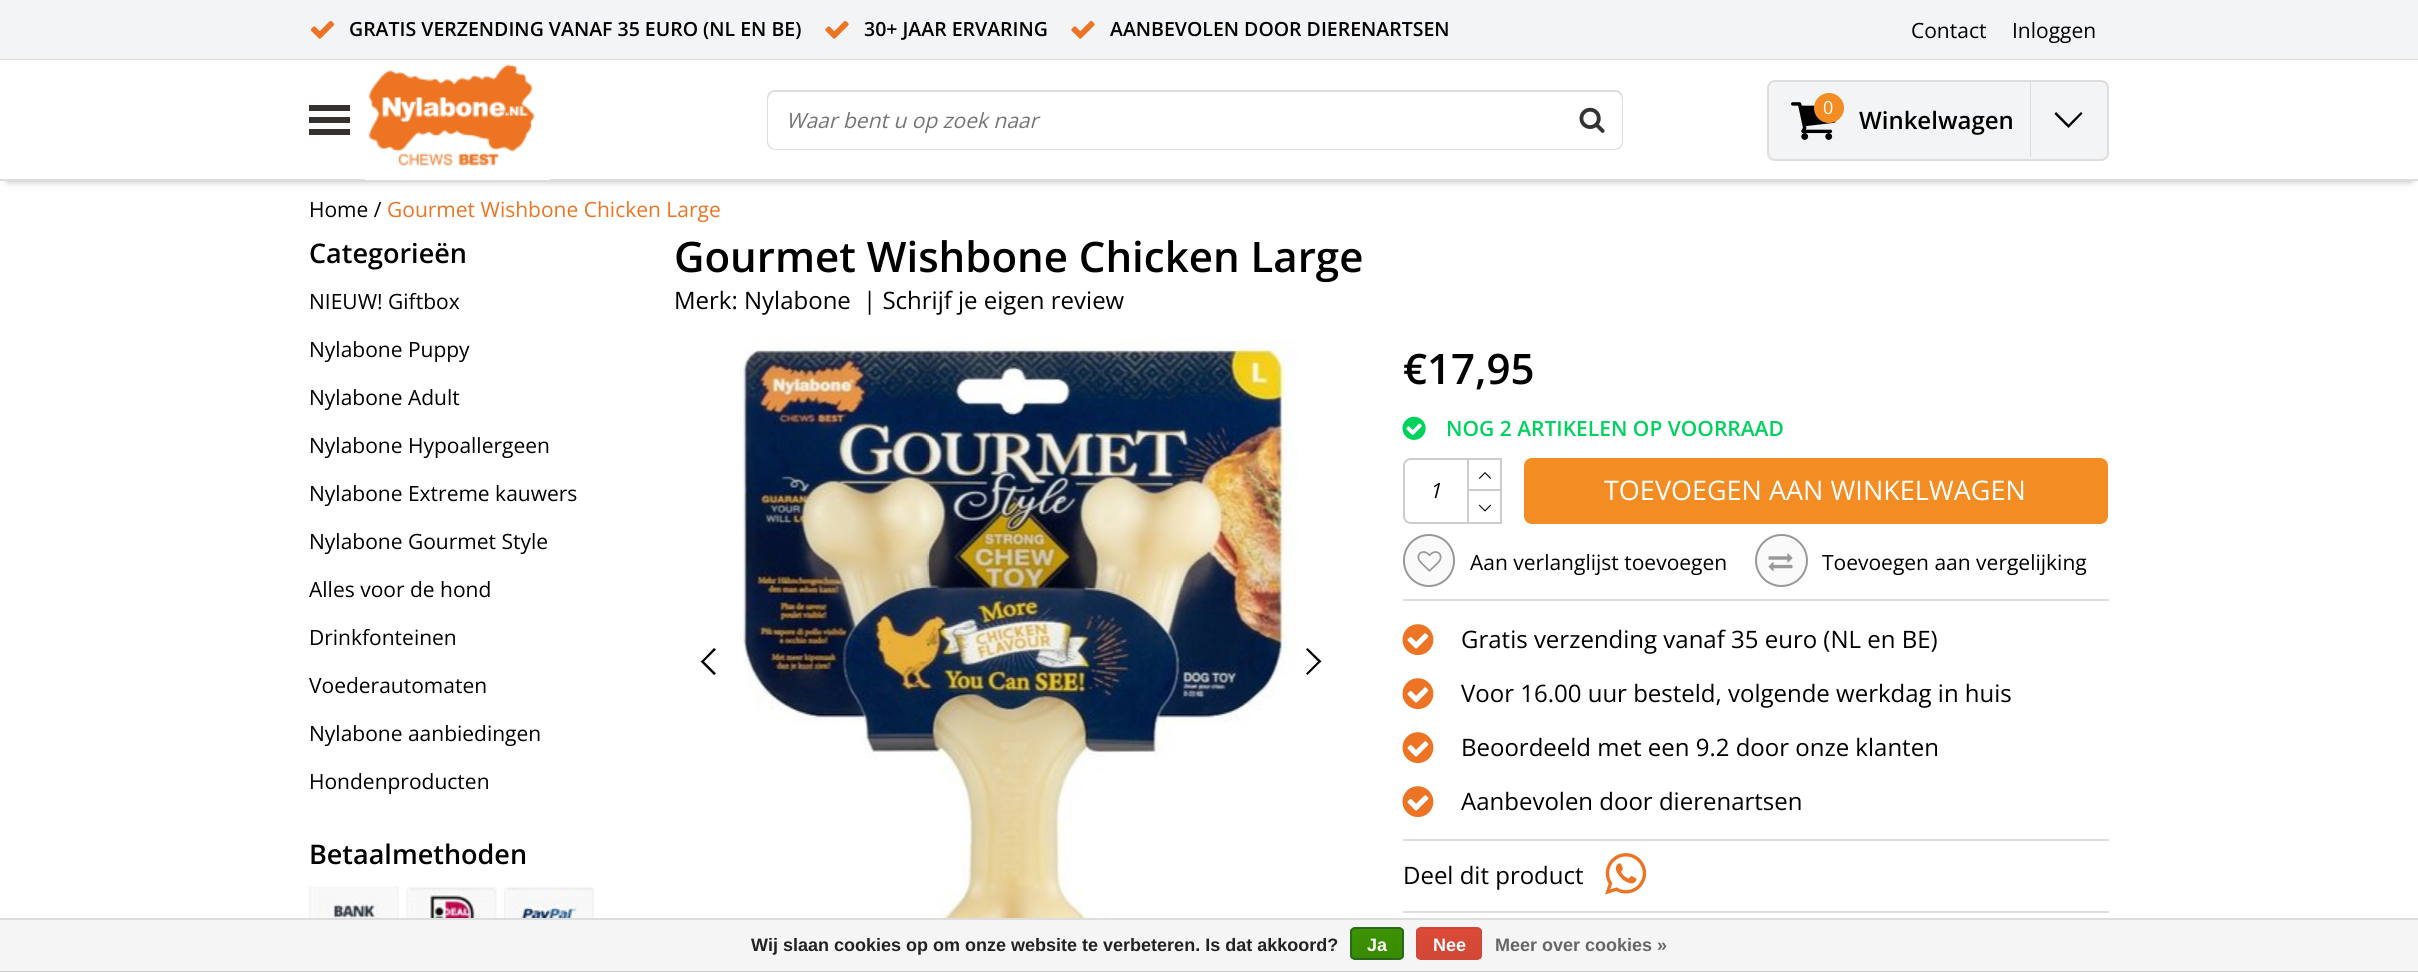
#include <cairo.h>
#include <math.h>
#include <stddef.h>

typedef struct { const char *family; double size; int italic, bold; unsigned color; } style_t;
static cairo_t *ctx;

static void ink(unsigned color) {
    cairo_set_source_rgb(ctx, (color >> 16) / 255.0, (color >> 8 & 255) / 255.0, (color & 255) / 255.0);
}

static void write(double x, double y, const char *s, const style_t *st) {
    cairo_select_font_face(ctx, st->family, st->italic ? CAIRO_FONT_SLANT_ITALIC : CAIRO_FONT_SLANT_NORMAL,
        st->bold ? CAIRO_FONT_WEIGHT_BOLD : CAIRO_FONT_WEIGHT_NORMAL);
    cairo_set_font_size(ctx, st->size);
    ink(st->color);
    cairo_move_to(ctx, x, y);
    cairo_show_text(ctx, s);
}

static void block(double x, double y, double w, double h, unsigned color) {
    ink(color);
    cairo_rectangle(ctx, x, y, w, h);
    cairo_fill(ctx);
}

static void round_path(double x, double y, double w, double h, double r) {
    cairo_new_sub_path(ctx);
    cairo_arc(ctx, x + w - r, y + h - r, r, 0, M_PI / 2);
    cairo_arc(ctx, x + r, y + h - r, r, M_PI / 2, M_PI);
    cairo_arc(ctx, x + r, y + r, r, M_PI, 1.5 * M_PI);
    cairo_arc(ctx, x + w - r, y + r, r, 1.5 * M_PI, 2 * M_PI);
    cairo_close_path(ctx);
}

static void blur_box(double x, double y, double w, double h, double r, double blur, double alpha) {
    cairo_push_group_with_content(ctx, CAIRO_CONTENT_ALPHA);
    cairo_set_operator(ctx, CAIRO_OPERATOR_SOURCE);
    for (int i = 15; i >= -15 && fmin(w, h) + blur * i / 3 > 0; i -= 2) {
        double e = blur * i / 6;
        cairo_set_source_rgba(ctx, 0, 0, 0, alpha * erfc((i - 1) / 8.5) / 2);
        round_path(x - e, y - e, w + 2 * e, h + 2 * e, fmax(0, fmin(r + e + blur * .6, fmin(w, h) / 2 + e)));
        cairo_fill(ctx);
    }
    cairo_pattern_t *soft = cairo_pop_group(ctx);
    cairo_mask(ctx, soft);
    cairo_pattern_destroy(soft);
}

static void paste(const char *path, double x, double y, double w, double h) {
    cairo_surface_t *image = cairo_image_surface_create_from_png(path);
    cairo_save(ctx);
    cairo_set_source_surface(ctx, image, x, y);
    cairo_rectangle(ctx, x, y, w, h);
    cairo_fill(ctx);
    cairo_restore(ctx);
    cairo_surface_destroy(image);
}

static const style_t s1 = {"Open Sans SemiBold", 19.5, 0, 0, 0x000000};
static const style_t s2 = {"Open Sans", 21, 0, 0, 0x000000};
static const style_t s3 = {"Open Sans", 21, 1, 0, 0x757575};
static const style_t s4 = {"Open Sans", 18, 0, 0, 0xffffff};
static const style_t s5 = {"Open Sans SemiBold", 24, 0, 0, 0x000000};
static const style_t s6 = {"Open Sans", 21, 0, 0, 0xec7424};
static const style_t s7 = {"Open Sans SemiBold", 27, 0, 0, 0x000000};
static const style_t s8 = {"Open Sans SemiBold", 42, 0, 0, 0x000000};
static const style_t s9 = {"Open Sans", 24, 0, 0, 0x000000};
static const style_t s10 = {"Open Sans SemiBold", 21, 0, 0, 0x00d25e};
static const style_t s11 = {"Open Sans", 21, 1, 0, 0x000000};
static const style_t s12 = {"Open Sans", 27, 0, 0, 0xffffff};
static const style_t s13 = {"Liberation Sans", 18, 0, 1, 0x222222};
static const style_t s14 = {"Liberation Sans", 18, 0, 1, 0xffffff};
static const style_t s15 = {"Liberation Sans", 18, 0, 1, 0x666666};

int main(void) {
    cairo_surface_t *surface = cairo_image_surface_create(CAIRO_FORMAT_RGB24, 2418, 972);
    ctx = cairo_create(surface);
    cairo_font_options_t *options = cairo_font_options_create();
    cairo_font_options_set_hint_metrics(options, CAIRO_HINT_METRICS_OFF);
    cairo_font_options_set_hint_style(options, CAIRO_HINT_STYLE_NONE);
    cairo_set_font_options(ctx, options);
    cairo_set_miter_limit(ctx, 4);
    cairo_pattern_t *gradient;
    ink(0xffffff);
    cairo_paint(ctx);
    block(0, 0, 2418, 59, 0xf3f4f6);
    block(0, 59, 2418, 1, 0xdddddd);
    paste("pic1.png", 310, 20, 25, 19);
    write(349, 36, "GRATIS VERZENDING VANAF 35 EURO (NL EN BE)", &s1);
    paste("pic2.png", 825, 20, 24, 19);
    write(864, 36, "30+ JAAR ERVARING", &s1);
    paste("pic2.png", 1071, 20, 24, 19);
    write(1110, 36, "AANBEVOLEN DOOR DIERENARTSEN", &s1);
    write(1911, 38, "Contact", &s2);
    write(2012, 38, "Inloggen", &s2);
    ink(0x000000);
    blur_box(8, 75, 2403, 105, 0, 4, 0.4);
    block(0, 67, 2418, 112, 0xffffff);
    block(0, 179, 2418, 2, 0xdddddd);
    block(309, 105, 41, 6, 0x34312f);
    block(309, 117, 41, 6, 0x34312f);
    block(309, 129, 41, 6, 0x34312f);
    paste("pic3.png", 364, 64, 187, 116);
    round_path(768, 91, 854, 58, 7);
    ink(0xdddddd);
    cairo_stroke(ctx);
    ink(0xffffff);
    round_path(768, 92, 854, 57, 8);
    cairo_fill(ctx);
    write(786, 128, "Waar bent u op zoek naar", &s3);
    block(1618, 93, 1, 1, 0xffffff);
    paste("pic4.png", 1579, 107, 26, 26);
    ink(0xf3f4f6);
    round_path(1768, 81, 340, 79, 7);
    cairo_fill_preserve(ctx);
    ink(0xdddddd);
    cairo_stroke(ctx);
    paste("pic5.png", 1791, 102, 45, 38);
    ink(0xf48c24);
    cairo_arc(ctx, 1829, 108, 15, 0, 2 * M_PI);
    cairo_fill(ctx);
    write(1823, 114, "0", &s4);
    write(1859, 129, "Winkelwagen", &s5);
    ink(0xdddddd);
    cairo_new_path(ctx);
    cairo_move_to(ctx, 2030, 158);
    cairo_line_to(ctx, 2030, 81);
    cairo_line_to(ctx, 2031, 81);
    cairo_line_to(ctx, 2031, 156);
    cairo_close_path(ctx);
    cairo_fill(ctx);
    ink(0x000000);
    cairo_new_path(ctx);
    cairo_move_to(ctx, 2066.5, 126);
    cairo_line_to(ctx, 2068.5, 128);
    cairo_line_to(ctx, 2082.5, 113.5);
    cairo_line_to(ctx, 2081, 112);
    cairo_line_to(ctx, 2068.5, 124.5);
    cairo_line_to(ctx, 2056, 112);
    cairo_line_to(ctx, 2054.5, 114);
    cairo_close_path(ctx);
    cairo_fill(ctx);
    write(309, 217, "Home /", &s2);
    write(387, 217, "Gourmet Wishbone Chicken Large", &s6);
    write(309, 263, "Categorieën", &s7);
    write(309, 309, "NIEUW! Giftbox", &s2);
    write(309, 357, "Nylabone Puppy", &s2);
    write(309, 405, "Nylabone Adult", &s2);
    write(309, 453, "Nylabone Hypoallergeen", &s2);
    write(309, 501, "Nylabone Extreme kauwers", &s2);
    write(309, 549, "Nylabone Gourmet Style", &s2);
    write(309, 597, "Alles voor de hond", &s2);
    write(309, 645, "Drinkfonteinen", &s2);
    write(309, 693, "Voederautomaten", &s2);
    write(309, 741, "Nylabone aanbiedingen", &s2);
    write(309, 789, "Hondenproducten", &s2);
    write(309, 864, "Betaalmethoden", &s7);
    paste("pic6.png", 309, 886, 90, 32);
    paste("pic7.png", 406, 886, 91, 32);
    paste("pic8.png", 504, 886, 90, 32);
    write(674, 272, "Gourmet Wishbone Chicken Large", &s8);
    write(674, 309, "Merk: Nylabone", &s9);
    write(863, 309, "| Schrijf je eigen review", &s9);
    paste("pic9.png", 743, 339, 555, 579);
    cairo_new_path(ctx);
    cairo_move_to(ctx, 702.5, 660);
    cairo_line_to(ctx, 700.5, 661.5);
    cairo_line_to(ctx, 714, 675);
    cairo_line_to(ctx, 716, 673.5);
    cairo_line_to(ctx, 704, 661.5);
    cairo_line_to(ctx, 716, 649.5);
    cairo_line_to(ctx, 714, 648);
    cairo_close_path(ctx);
    cairo_fill(ctx);
    cairo_new_path(ctx);
    cairo_move_to(ctx, 1319.5, 663);
    cairo_line_to(ctx, 1321.5, 661.5);
    cairo_line_to(ctx, 1307.5, 648);
    cairo_line_to(ctx, 1306, 649.5);
    cairo_line_to(ctx, 1318, 661.5);
    cairo_line_to(ctx, 1306, 673.5);
    cairo_line_to(ctx, 1307.5, 675);
    cairo_close_path(ctx);
    cairo_fill(ctx);
    write(1403, 384, "€17,95", &s8);
    paste("pic10.png", 1402, 416, 24, 24);
    write(1446, 436, "NOG 2 ARTIKELEN OP VOORRAAD", &s10);
    cairo_new_path(ctx);
    cairo_move_to(ctx, 1411, 459);
    cairo_line_to(ctx, 1468, 459);
    cairo_line_to(ctx, 1468, 523);
    cairo_line_to(ctx, 1411, 523);
    cairo_curve_to(ctx, 1407, 523, 1404, 520, 1404, 516);
    cairo_line_to(ctx, 1404, 466);
    cairo_curve_to(ctx, 1404, 462, 1407, 459, 1411, 459);
    cairo_close_path(ctx);
    ink(0xcccccc);
    cairo_stroke(ctx);
    write(1429, 498, "1", &s11);
    block(1469, 458, 33, 2, 0xcccccc);
    block(1500, 458, 2, 66, 0xcccccc);
    block(1469, 489, 33, 2, 0xcccccc);
    paste("pic11.png", 1478, 472, 14, 7);
    block(1469, 522, 33, 2, 0xcccccc);
    paste("pic12.png", 1478, 504, 14, 8);
    ink(0xf48c24);
    round_path(1524, 458, 584, 66, 8);
    cairo_fill(ctx);
    write(1604, 500, "TOEVOEGEN AAN WINKELWAGEN", &s12);
    block(1403, 599, 706, 2, 0xdddddd);
    ink(0xfafafa);
    round_path(1404, 535, 50, 51, 25);
    cairo_fill_preserve(ctx);
    ink(0x999999);
    cairo_stroke(ctx);
    paste("pic13.png", 1417, 551, 25, 21);
    write(1470, 570, "Aan verlanglijst toevoegen", &s2);
    ink(0xfafafa);
    cairo_new_path(ctx);
    cairo_arc(ctx, 1781.5, 560.5, 25.5, 0, 2 * M_PI);
    cairo_fill_preserve(ctx);
    ink(0x999999);
    cairo_stroke(ctx);
    paste("pic14.png", 1768, 553, 25, 19);
    write(1822, 570, "Toevoegen aan vergelijking", &s2);
    block(1403, 839, 706, 2, 0xdddddd);
    paste("pic15.png", 1402, 624, 32, 32);
    write(1461, 648, "Gratis verzending vanaf 35 euro (NL en BE)", &s9);
    paste("pic15.png", 1402, 678, 32, 32);
    write(1461, 702, "Voor 16.00 uur besteld, volgende werkdag in huis", &s9);
    paste("pic15.png", 1402, 732, 32, 32);
    write(1461, 756, "Beoordeeld met een 9.2 door onze klanten", &s9);
    paste("pic15.png", 1402, 786, 32, 32);
    write(1461, 810, "Aanbevolen door dierenartsen", &s9);
    block(1403, 911, 706, 2, 0xdddddd);
    write(1403, 884, "Deel dit product", &s9);
    paste("pic16.png", 1605, 853, 42, 42);
    block(0, 920, 2418, 51, 0xf5f5f5);
    block(0, 918, 2418, 2, 0xdddddd);
    block(0, 971, 2418, 1, 0xcccccc);
    write(751, 951, "Wij slaan cookies op om onze website te verbeteren. Is dat akkoord?", &s13);
    cairo_save(ctx);
    round_path(1350, 927, 54, 33, 5);
    cairo_clip(ctx);
    gradient = cairo_pattern_create_linear(1377, 929, 1377, 959);
    cairo_pattern_add_color_stop_rgba(gradient, 0, 0.235, 0.576, 0, 1);
    cairo_pattern_add_color_stop_rgba(gradient, 1, 0.224, 0.541, 0, 1);
    cairo_set_source(ctx, gradient);
    cairo_pattern_destroy(gradient);
    cairo_rectangle(ctx, 1350, 929, 54, 30);
    cairo_fill(ctx);
    cairo_restore(ctx);
    round_path(1351, 928, 52, 31, 4);
    ink(0x29691d);
    cairo_stroke(ctx);
    write(1367, 951, "Ja", &s14);
    cairo_save(ctx);
    round_path(1416, 927, 66, 33, 5);
    cairo_clip(ctx);
    gradient = cairo_pattern_create_linear(1449, 929, 1449, 959);
    cairo_pattern_add_color_stop_rgba(gradient, 0, 0.863, 0.29, 0.22, 1);
    cairo_pattern_add_color_stop_rgba(gradient, 1, 0.82, 0.282, 0.212, 1);
    cairo_set_source(ctx, gradient);
    cairo_pattern_destroy(gradient);
    cairo_rectangle(ctx, 1416, 929, 66, 30);
    cairo_fill(ctx);
    cairo_restore(ctx);
    round_path(1417, 928, 64, 31, 4);
    ink(0xd14836);
    cairo_stroke(ctx);
    write(1433, 951, "Nee", &s14);
    write(1495, 951, "Meer over cookies »", &s15);
    cairo_surface_write_to_png(surface, "screenshot.png");
    cairo_font_options_destroy(options);
    cairo_destroy(ctx);
    cairo_surface_destroy(surface);
    return 0;
}
